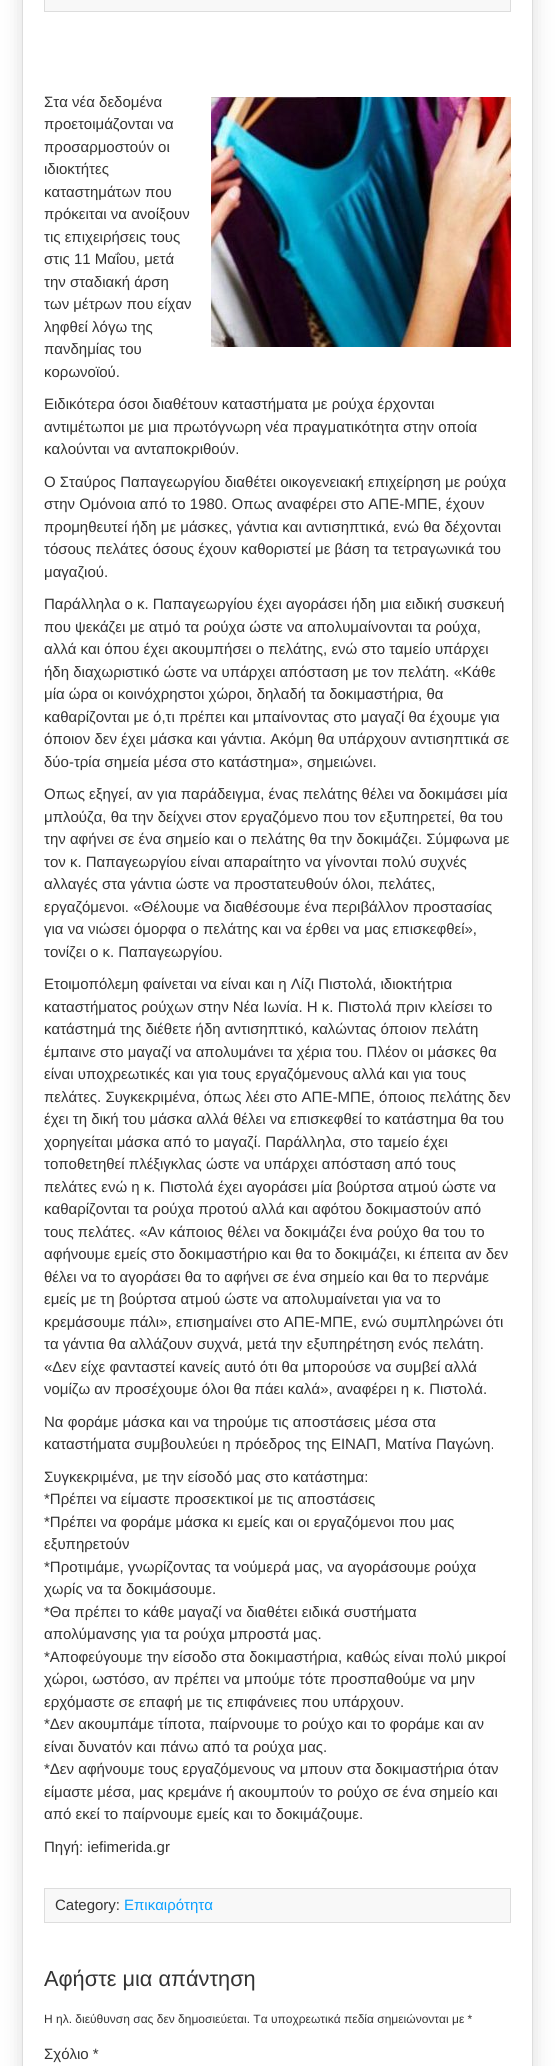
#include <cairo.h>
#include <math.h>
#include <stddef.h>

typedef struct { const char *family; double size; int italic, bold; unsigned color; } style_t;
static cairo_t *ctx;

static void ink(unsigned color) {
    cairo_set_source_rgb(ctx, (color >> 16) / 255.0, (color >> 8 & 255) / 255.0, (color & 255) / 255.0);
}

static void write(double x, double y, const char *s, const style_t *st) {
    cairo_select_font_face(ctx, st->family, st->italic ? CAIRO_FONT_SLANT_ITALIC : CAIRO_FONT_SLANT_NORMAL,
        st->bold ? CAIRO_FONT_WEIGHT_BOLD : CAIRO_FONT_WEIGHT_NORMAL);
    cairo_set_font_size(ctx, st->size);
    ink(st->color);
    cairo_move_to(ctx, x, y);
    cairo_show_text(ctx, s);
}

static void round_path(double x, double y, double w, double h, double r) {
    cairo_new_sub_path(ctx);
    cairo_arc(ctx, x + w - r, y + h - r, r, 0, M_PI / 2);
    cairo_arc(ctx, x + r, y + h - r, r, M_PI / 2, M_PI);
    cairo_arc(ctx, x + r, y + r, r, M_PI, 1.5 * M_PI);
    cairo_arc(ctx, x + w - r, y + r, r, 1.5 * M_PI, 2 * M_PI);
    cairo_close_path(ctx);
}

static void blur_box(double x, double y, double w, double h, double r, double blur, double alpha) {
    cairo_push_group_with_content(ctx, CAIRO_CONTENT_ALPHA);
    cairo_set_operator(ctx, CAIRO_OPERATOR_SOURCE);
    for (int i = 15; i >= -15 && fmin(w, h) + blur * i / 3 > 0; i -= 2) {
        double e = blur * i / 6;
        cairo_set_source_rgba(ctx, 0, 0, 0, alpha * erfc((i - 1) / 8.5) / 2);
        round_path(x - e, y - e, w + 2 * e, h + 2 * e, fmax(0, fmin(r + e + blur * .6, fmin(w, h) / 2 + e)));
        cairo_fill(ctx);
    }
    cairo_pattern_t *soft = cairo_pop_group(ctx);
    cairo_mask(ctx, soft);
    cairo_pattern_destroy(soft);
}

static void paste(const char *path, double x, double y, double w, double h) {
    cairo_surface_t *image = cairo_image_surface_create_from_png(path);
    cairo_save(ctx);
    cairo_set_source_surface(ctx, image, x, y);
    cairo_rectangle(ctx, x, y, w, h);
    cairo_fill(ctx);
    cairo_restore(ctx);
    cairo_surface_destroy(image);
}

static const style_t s1 = {"Liberation Sans", 15, 0, 0, 0x333333};
static const style_t s2 = {"Liberation Sans", 15, 0, 0, 0x08a0ff};
static const style_t s3 = {"Liberation Sans", 21.75, 0, 0, 0x333333};
static const style_t s4 = {"Liberation Sans", 12, 0, 0, 0x333333};

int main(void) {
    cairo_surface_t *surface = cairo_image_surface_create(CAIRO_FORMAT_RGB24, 555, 2066);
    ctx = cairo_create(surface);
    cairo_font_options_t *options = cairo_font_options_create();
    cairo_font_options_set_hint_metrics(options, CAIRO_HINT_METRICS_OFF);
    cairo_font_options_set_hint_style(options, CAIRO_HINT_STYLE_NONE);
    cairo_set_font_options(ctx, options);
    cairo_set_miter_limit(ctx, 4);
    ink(0xffffff);
    cairo_paint(ctx);
    cairo_save(ctx);
    cairo_set_fill_rule(ctx, CAIRO_FILL_RULE_EVEN_ODD);
    cairo_new_path(ctx);
    cairo_move_to(ctx, 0, 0);
    cairo_line_to(ctx, 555, 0);
    cairo_line_to(ctx, 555, 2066);
    cairo_line_to(ctx, 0, 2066);
    cairo_close_path(ctx);
    cairo_move_to(ctx, 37, -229);
    cairo_line_to(ctx, 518, -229);
    cairo_curve_to(ctx, 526.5, -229, 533, -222.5, 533, -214);
    cairo_line_to(ctx, 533, 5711);
    cairo_curve_to(ctx, 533, 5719.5, 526.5, 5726, 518, 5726);
    cairo_line_to(ctx, 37, 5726);
    cairo_curve_to(ctx, 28.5, 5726, 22, 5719.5, 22, 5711);
    cairo_line_to(ctx, 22, -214);
    cairo_curve_to(ctx, 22, -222.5, 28.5, -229, 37, -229);
    cairo_close_path(ctx);
    cairo_clip(ctx);
    ink(0xdddddd);
    blur_box(22, -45, 511, 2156, 15, 10, 1);
    cairo_restore(ctx);
    cairo_rectangle(ctx, 22.5, -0.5, 510, 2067);
    ink(0xdddddd);
    cairo_set_line_width(ctx, 1);
    cairo_stroke(ctx);
    ink(0xf8f8f8);
    cairo_rectangle(ctx, 44.5, -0.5, 466, 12);
    cairo_fill_preserve(ctx);
    ink(0xdddddd);
    cairo_stroke(ctx);
    write(44, 107, "Στα νέα δεδομένα", &s1);
    paste("pic1.png", 211, 97, 300, 250);
    write(44, 129, "προετοιμάζονται να", &s1);
    write(44, 152, "προσαρμοστούν οι", &s1);
    write(44, 174, "ιδιοκτήτες", &s1);
    write(44, 197, "καταστημάτων που", &s1);
    write(44, 219, "πρόκειται να ανοίξουν", &s1);
    write(44, 242, "τις επιχειρήσεις τους", &s1);
    write(44, 264, "στις 11 Μαΐου, μετά", &s1);
    write(44, 287, "την σταδιακή άρση", &s1);
    write(44, 309, "των μέτρων που είχαν", &s1);
    write(44, 332, "ληφθεί λόγω της", &s1);
    write(44, 354, "πανδημίας του", &s1);
    write(44, 377, "κορωνοϊού.", &s1);
    write(44, 409, "Ειδικότερα όσοι διαθέτουν καταστήματα με ρούχα έρχονται", &s1);
    write(44, 432, "αντιμέτωποι με μια πρωτόγνωρη νέα πραγματικότητα στην οποία", &s1);
    write(44, 454, "καλούνται να ανταποκριθούν.", &s1);
    write(44, 487, "Ο Σταύρος Παπαγεωργίου διαθέτει οικογενειακή επιχείρηση με ρούχα", &s1);
    write(44, 509, "στην Ομόνοια από το 1980. Οπως αναφέρει στο ΑΠΕ-ΜΠΕ, έχουν", &s1);
    write(44, 532, "προμηθευτεί ήδη με μάσκες, γάντια και αντισηπτικά, ενώ θα δέχονται", &s1);
    write(44, 554, "τόσους πελάτες όσους έχουν καθοριστεί με βάση τα τετραγωνικά του", &s1);
    write(44, 577, "μαγαζιού.", &s1);
    write(44, 609, "Παράλληλα ο κ. Παπαγεωργίου έχει αγοράσει ήδη μια ειδική συσκευή", &s1);
    write(44, 632, "που ψεκάζει με ατμό τα ρούχα ώστε να απολυμαίνονται τα ρούχα,", &s1);
    write(44, 654, "αλλά και όπου έχει ακουμπήσει ο πελάτης, ενώ στο ταμείο υπάρχει", &s1);
    write(44, 677, "ήδη διαχωριστικό ώστε να υπάρχει απόσταση με τον πελάτη. «Κάθε", &s1);
    write(44, 699, "μία ώρα οι κοινόχρηστοι χώροι, δηλαδή τα δοκιμαστήρια, θα", &s1);
    write(44, 722, "καθαρίζονται με ό,τι πρέπει και μπαίνοντας στο μαγαζί θα έχουμε για", &s1);
    write(44, 744, "όποιον δεν έχει μάσκα και γάντια. Ακόμη θα υπάρχουν αντισηπτικά σε", &s1);
    write(44, 767, "δύο-τρία σημεία μέσα στο κατάστημα», σημειώνει.", &s1);
    write(44, 799, "Οπως εξηγεί, αν για παράδειγμα, ένας πελάτης θέλει να δοκιμάσει μία", &s1);
    write(44, 822, "μπλούζα, θα την δείχνει στον εργαζόμενο που τον εξυπηρετεί, θα του", &s1);
    write(44, 844, "την αφήνει σε ένα σημείο και ο πελάτης θα την δοκιμάζει. Σύμφωνα με", &s1);
    write(44, 867, "τον κ. Παπαγεωργίου είναι απαραίτητο να γίνονται πολύ συχνές", &s1);
    write(44, 889, "αλλαγές στα γάντια ώστε να προστατευθούν όλοι, πελάτες,", &s1);
    write(44, 912, "εργαζόμενοι. «Θέλουμε να διαθέσουμε ένα περιβάλλον προστασίας", &s1);
    write(44, 934, "για να νιώσει όμορφα ο πελάτης και να έρθει να μας επισκεφθεί»,", &s1);
    write(44, 957, "τονίζει ο κ. Παπαγεωργίου.", &s1);
    write(44, 989, "Ετοιμοπόλεμη φαίνεται να είναι και η Λίζι Πιστολά, ιδιοκτήτρια", &s1);
    write(44, 1012, "καταστήματος ρούχων στην Νέα Ιωνία. Η κ. Πιστολά πριν κλείσει το", &s1);
    write(44, 1034, "κατάστημά της διέθετε ήδη αντισηπτικό, καλώντας όποιον πελάτη", &s1);
    write(44, 1057, "έμπαινε στο μαγαζί να απολυμάνει τα χέρια του. Πλέον οι μάσκες θα", &s1);
    write(44, 1079, "είναι υποχρεωτικές και για τους εργαζόμενους αλλά και για τους", &s1);
    write(44, 1102, "πελάτες. Συγκεκριμένα, όπως λέει στο ΑΠΕ-ΜΠΕ, όποιος πελάτης δεν", &s1);
    write(44, 1124, "έχει τη δική του μάσκα αλλά θέλει να επισκεφθεί το κατάστημα θα του", &s1);
    write(44, 1147, "χορηγείται μάσκα από το μαγαζί. Παράλληλα, στο ταμείο έχει", &s1);
    write(44, 1169, "τοποθετηθεί πλέξιγκλας ώστε να υπάρχει απόσταση από τους", &s1);
    write(44, 1192, "πελάτες ενώ η κ. Πιστολά έχει αγοράσει μία βούρτσα ατμού ώστε να", &s1);
    write(44, 1214, "καθαρίζονται τα ρούχα προτού αλλά και αφότου δοκιμαστούν από", &s1);
    write(44, 1237, "τους πελάτες. «Αν κάποιος θέλει να δοκιμάζει ένα ρούχο θα του το", &s1);
    write(44, 1259, "αφήνουμε εμείς στο δοκιμαστήριο και θα το δοκιμάζει, κι έπειτα αν δεν", &s1);
    write(44, 1282, "θέλει να το αγοράσει θα το αφήνει σε ένα σημείο και θα το περνάμε", &s1);
    write(44, 1304, "εμείς με τη βούρτσα ατμού ώστε να απολυμαίνεται για να το", &s1);
    write(44, 1327, "κρεμάσουμε πάλι», επισημαίνει στο ΑΠΕ-ΜΠΕ, ενώ συμπληρώνει ότι", &s1);
    write(44, 1349, "τα γάντια θα αλλάζουν συχνά, μετά την εξυπηρέτηση ενός πελάτη.", &s1);
    write(44, 1372, "«Δεν είχε φανταστεί κανείς αυτό ότι θα μπορούσε να συμβεί αλλά", &s1);
    write(44, 1394, "νομίζω αν προσέχουμε όλοι θα πάει καλά», αναφέρει η κ. Πιστολά.", &s1);
    write(44, 1427, "Να φοράμε μάσκα και να τηρούμε τις αποστάσεις μέσα στα", &s1);
    write(44, 1449, "καταστήματα συμβουλεύει η πρόεδρος της ΕΙΝΑΠ, Ματίνα Παγώνη.", &s1);
    write(44, 1482, "Συγκεκριμένα, με την είσοδό μας στο κατάστημα:", &s1);
    write(44, 1504, "*Πρέπει να είμαστε προσεκτικοί με τις αποστάσεις", &s1);
    write(44, 1527, "*Πρέπει να φοράμε μάσκα κι εμείς και οι εργαζόμενοι που μας", &s1);
    write(44, 1549, "εξυπηρετούν", &s1);
    write(44, 1572, "*Προτιμάμε, γνωρίζοντας τα νούμερά μας, να αγοράσουμε ρούχα", &s1);
    write(44, 1594, "χωρίς να τα δοκιμάσουμε.", &s1);
    write(44, 1617, "*Θα πρέπει το κάθε μαγαζί να διαθέτει ειδικά συστήματα", &s1);
    write(44, 1639, "απολύμανσης για τα ρούχα μπροστά μας.", &s1);
    write(44, 1662, "*Αποφεύγουμε την είσοδο στα δοκιμαστήρια, καθώς είναι πολύ μικροί", &s1);
    write(44, 1684, "χώροι, ωστόσο, αν πρέπει να μπούμε τότε προσπαθούμε να μην", &s1);
    write(44, 1707, "ερχόμαστε σε επαφή με τις επιφάνειες που υπάρχουν.", &s1);
    write(44, 1729, "*Δεν ακουμπάμε τίποτα, παίρνουμε το ρούχο και το φοράμε και αν", &s1);
    write(44, 1752, "είναι δυνατόν και πάνω από τα ρούχα μας.", &s1);
    write(44, 1774, "*Δεν αφήνουμε τους εργαζόμενους να μπουν στα δοκιμαστήρια όταν", &s1);
    write(44, 1797, "είμαστε μέσα, μας κρεμάνε ή ακουμπούν το ρούχο σε ένα σημείο και", &s1);
    write(44, 1819, "από εκεί το παίρνουμε εμείς και το δοκιμάζουμε.", &s1);
    write(44, 1852, "Πηγή: iefimerida.gr", &s1);
    ink(0xf8f8f8);
    cairo_rectangle(ctx, 44.5, 1888.5, 466, 34);
    cairo_fill_preserve(ctx);
    ink(0xdddddd);
    cairo_stroke(ctx);
    write(55, 1910, "Category:", &s1);
    write(124, 1910, "Επικαιρότητα", &s2);
    write(44, 1986, "Αφήστε μια απάντηση", &s3);
    write(44, 2023, "Η ηλ. διεύθυνση σας δεν δημοσιεύεται. Τα υποχρεωτικά πεδία σημειώνονται με *", &s4);
    write(44, 2059, "Σχόλιο *", &s1);
    cairo_surface_write_to_png(surface, "screenshot.png");
    cairo_font_options_destroy(options);
    cairo_destroy(ctx);
    cairo_surface_destroy(surface);
    return 0;
}
